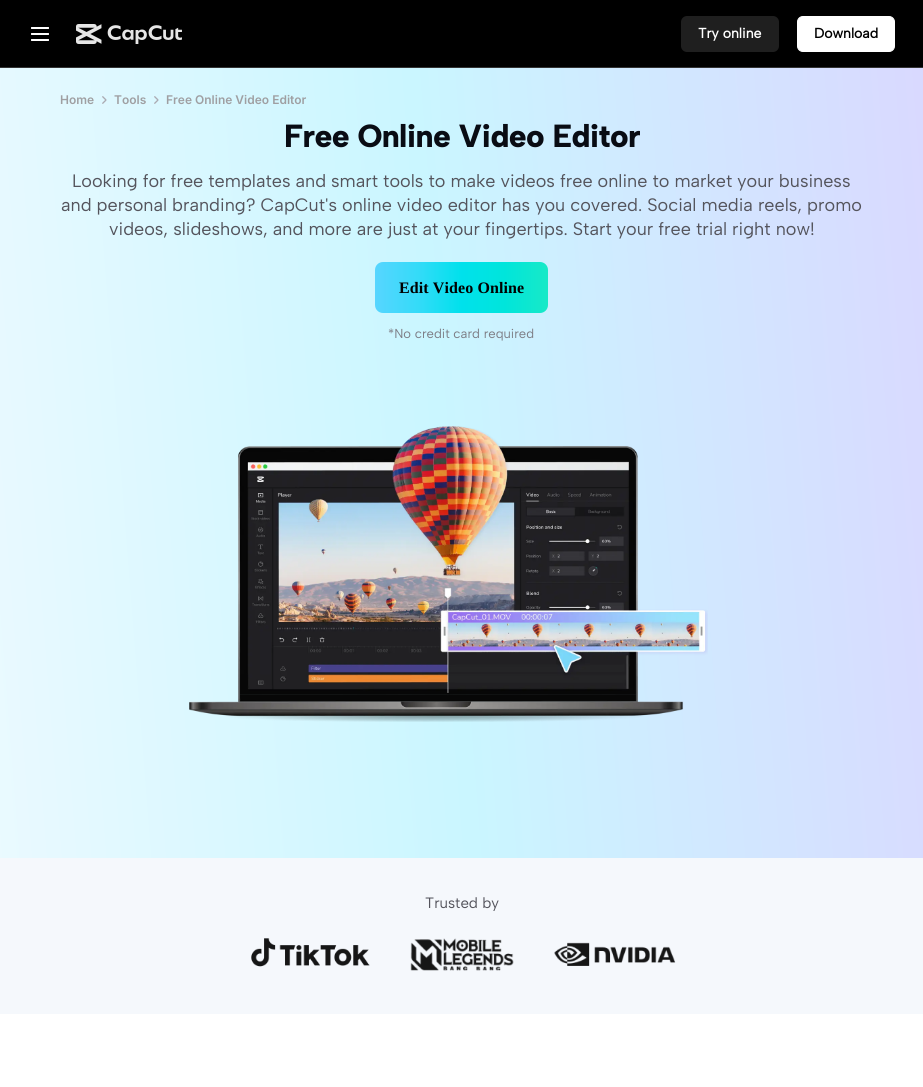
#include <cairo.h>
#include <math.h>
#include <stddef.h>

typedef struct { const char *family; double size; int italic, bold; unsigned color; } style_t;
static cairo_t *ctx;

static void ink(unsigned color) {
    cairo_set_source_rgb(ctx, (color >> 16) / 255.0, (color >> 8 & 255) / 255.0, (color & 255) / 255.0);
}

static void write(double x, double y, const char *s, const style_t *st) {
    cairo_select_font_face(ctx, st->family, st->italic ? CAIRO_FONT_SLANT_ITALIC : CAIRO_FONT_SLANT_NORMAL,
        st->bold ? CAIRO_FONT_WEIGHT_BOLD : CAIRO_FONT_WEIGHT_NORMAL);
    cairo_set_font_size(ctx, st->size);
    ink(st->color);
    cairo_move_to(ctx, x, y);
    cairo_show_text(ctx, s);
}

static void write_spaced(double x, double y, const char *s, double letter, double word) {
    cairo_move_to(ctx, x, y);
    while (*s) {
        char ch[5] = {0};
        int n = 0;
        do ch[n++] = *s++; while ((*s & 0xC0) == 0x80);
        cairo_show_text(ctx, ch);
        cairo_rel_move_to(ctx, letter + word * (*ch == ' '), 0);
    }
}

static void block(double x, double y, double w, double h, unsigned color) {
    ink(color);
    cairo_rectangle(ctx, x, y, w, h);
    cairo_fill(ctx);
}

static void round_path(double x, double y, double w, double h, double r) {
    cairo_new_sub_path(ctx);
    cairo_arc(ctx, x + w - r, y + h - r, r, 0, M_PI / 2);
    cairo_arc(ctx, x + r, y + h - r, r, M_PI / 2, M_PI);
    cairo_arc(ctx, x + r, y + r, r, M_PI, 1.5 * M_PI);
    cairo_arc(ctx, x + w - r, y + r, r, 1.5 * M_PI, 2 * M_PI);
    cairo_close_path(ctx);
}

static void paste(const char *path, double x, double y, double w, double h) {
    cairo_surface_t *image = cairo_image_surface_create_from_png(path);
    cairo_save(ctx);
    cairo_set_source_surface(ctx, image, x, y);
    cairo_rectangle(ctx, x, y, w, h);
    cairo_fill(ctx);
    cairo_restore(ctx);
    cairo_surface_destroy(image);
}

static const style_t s1 = {"Albert Sans", 14, 0, 1, 0xffffff};
static const style_t s2 = {"Albert Sans", 14, 0, 1, 0x000000};
static const style_t s3 = {"Inter SemiBold", 12, 0, 0, 0x9f9fa2};
static const style_t s4 = {"Albert Sans", 18, 0, 0, 0x54545c};
static const style_t s5 = {"Albert Sans", 13, 0, 0, 0x7d7d85};
static const style_t s6 = {"Albert Sans", 15, 0, 0, 0x54545c};

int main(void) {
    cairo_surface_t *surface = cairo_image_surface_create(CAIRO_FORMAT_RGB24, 923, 1087);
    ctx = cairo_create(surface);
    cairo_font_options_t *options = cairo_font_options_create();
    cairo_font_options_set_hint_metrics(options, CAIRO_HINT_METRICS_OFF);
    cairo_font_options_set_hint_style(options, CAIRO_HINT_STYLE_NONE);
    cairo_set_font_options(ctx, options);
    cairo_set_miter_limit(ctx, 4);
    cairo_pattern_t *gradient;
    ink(0xffffff);
    cairo_paint(ctx);
    block(0, 0, 923, 67, 0x000000);
    block(0, 67, 923, 1, 0x333333);
    paste("pic1.png", 31, 27, 18, 14);
    paste("pic2.png", 76, 24, 106, 20);
    ink(0x1f1f1f);
    round_path(681, 16, 98, 36, 6);
    cairo_fill(ctx);
    write(698, 38, "Try online", &s1);
    round_path(797.5, 16.5, 97, 35, 5.5);
    cairo_fill_preserve(ctx);
    cairo_set_line_width(ctx, 1);
    cairo_stroke(ctx);
    write(814, 38, "Download", &s2);
    gradient = cairo_pattern_create_linear(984, 420, -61, 502);
    cairo_pattern_add_color_stop_rgba(gradient, 0, 0.855, 0.843, 1, 1);
    cairo_pattern_add_color_stop_rgba(gradient, 0.52, 0.792, 0.965, 1, 1);
    cairo_pattern_add_color_stop_rgba(gradient, 1, 0.925, 0.98, 1, 1);
    cairo_set_source(ctx, gradient);
    cairo_pattern_destroy(gradient);
    cairo_rectangle(ctx, 0, 68, 923, 790);
    cairo_fill(ctx);
    write(60, 104, "Home", &s3);
    paste("pic3.png", 102, 96, 5, 8);
    write(114, 104, "Tools", &s3);
    paste("pic4.png", 154, 96, 5, 8);
    write(166, 104, "Free Online Video Editor", &s3);
    cairo_select_font_face(ctx, "Albert Sans ExtraBold", CAIRO_FONT_SLANT_NORMAL, CAIRO_FONT_WEIGHT_NORMAL);
    cairo_set_font_size(ctx, 32);
    ink(0x090c14);
    write_spaced(284, 147, "Free Online Video Editor", -0.6, 0);
    write(72, 187, "Looking for free templates and smart tools to make videos free online to market your business", &s4);
    write(61, 211, "and personal branding? CapCut's online video editor has you covered. Social media reels, promo", &s4);
    write(109, 235, "videos, slideshows, and more are just at your fingertips. Start your free trial right now!", &s4);
    gradient = cairo_pattern_create_linear(375, 288, 548, 288);
    cairo_pattern_add_color_stop_rgba(gradient, 0, 0.341, 0.835, 1, 1);
    cairo_pattern_add_color_stop_rgba(gradient, 0.25, 0.204, 0.859, 0.973, 1);
    cairo_pattern_add_color_stop_rgba(gradient, 0.5, 0, 0.882, 0.925, 1);
    cairo_pattern_add_color_stop_rgba(gradient, 0.75, 0, 0.898, 0.859, 1);
    cairo_pattern_add_color_stop_rgba(gradient, 1, 0.094, 0.914, 0.78, 1);
    cairo_set_source(ctx, gradient);
    cairo_pattern_destroy(gradient);
    round_path(375, 262, 173, 51, 8);
    cairo_fill(ctx);
    cairo_select_font_face(ctx, "Liberation Serif", CAIRO_FONT_SLANT_NORMAL, CAIRO_FONT_WEIGHT_BOLD);
    cairo_set_font_size(ctx, 16);
    ink(0x000000);
    write_spaced(399, 293, "Edit Video Online", 0.1, 0);
    write(388, 338, "*No credit card required", &s5);
    paste("pic5.png", 189, 426, 519, 296);
    block(0, 858, 923, 156, 0xf5f8fc);
    write(425, 908, "Trusted by", &s6);
    paste("pic6.png", 251, 938, 119, 29);
    paste("pic7.png", 410, 938, 104, 33);
    paste("pic8.png", 554, 942, 122, 24);
    cairo_surface_write_to_png(surface, "screenshot.png");
    cairo_font_options_destroy(options);
    cairo_destroy(ctx);
    cairo_surface_destroy(surface);
    return 0;
}
